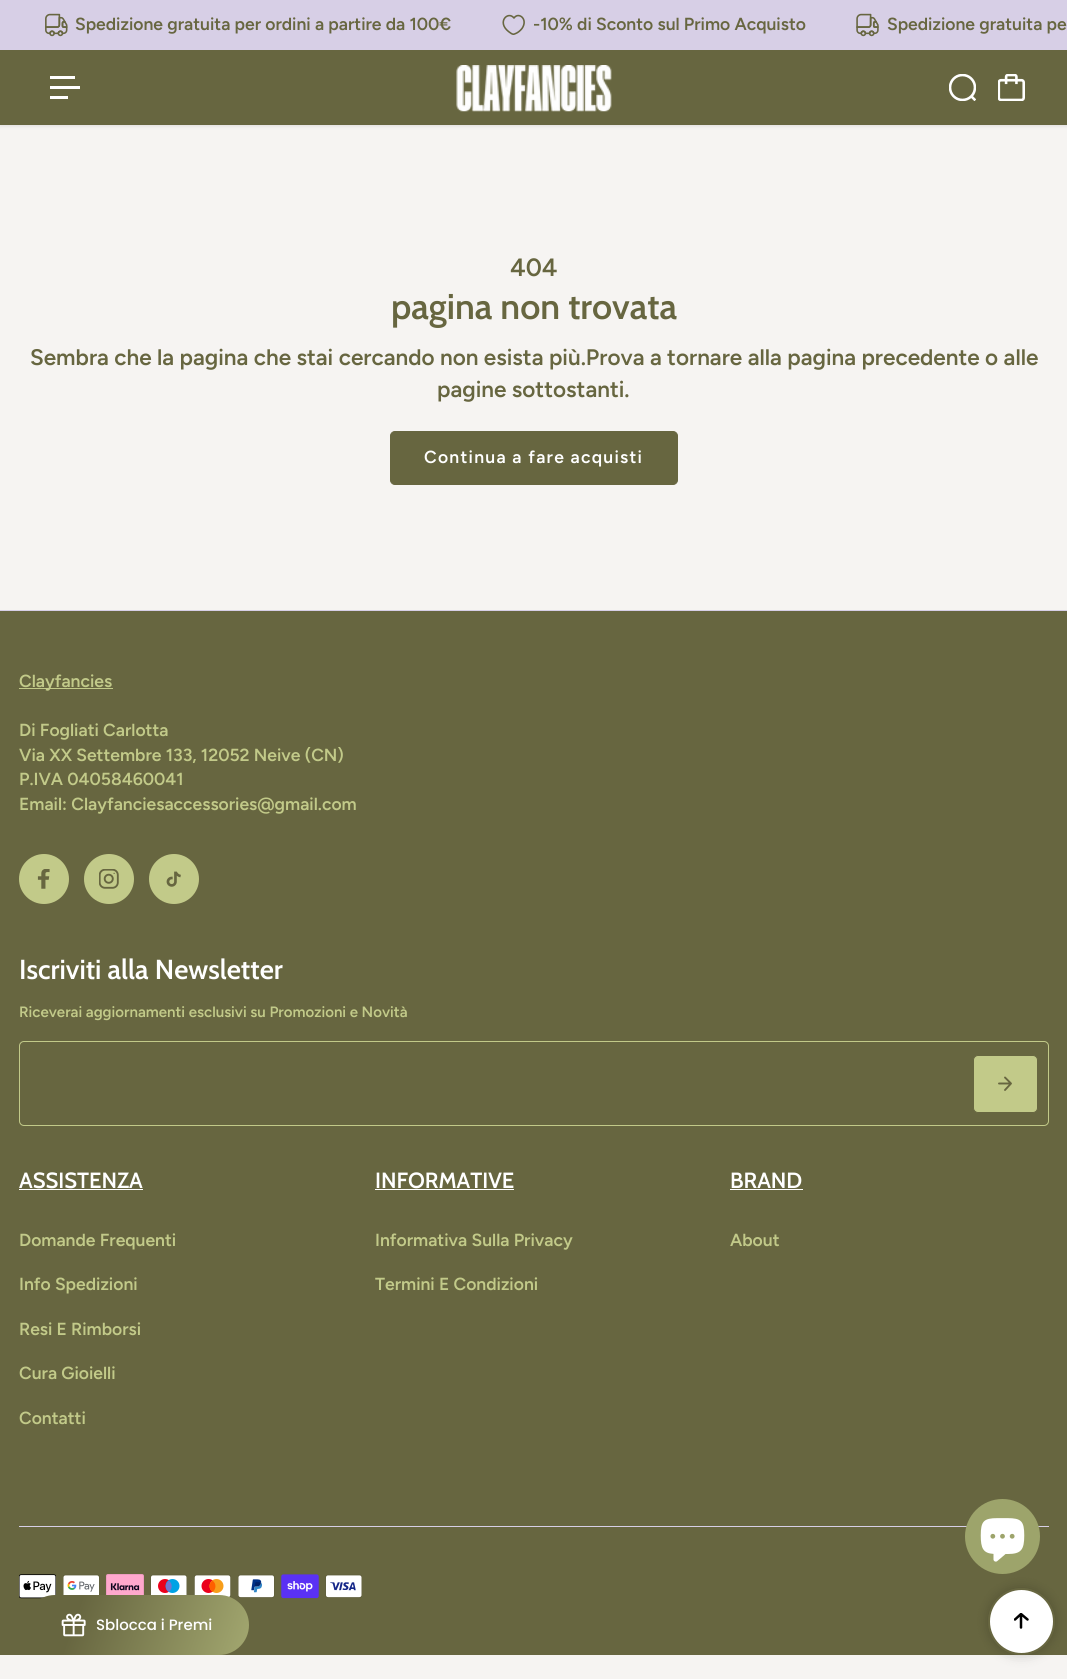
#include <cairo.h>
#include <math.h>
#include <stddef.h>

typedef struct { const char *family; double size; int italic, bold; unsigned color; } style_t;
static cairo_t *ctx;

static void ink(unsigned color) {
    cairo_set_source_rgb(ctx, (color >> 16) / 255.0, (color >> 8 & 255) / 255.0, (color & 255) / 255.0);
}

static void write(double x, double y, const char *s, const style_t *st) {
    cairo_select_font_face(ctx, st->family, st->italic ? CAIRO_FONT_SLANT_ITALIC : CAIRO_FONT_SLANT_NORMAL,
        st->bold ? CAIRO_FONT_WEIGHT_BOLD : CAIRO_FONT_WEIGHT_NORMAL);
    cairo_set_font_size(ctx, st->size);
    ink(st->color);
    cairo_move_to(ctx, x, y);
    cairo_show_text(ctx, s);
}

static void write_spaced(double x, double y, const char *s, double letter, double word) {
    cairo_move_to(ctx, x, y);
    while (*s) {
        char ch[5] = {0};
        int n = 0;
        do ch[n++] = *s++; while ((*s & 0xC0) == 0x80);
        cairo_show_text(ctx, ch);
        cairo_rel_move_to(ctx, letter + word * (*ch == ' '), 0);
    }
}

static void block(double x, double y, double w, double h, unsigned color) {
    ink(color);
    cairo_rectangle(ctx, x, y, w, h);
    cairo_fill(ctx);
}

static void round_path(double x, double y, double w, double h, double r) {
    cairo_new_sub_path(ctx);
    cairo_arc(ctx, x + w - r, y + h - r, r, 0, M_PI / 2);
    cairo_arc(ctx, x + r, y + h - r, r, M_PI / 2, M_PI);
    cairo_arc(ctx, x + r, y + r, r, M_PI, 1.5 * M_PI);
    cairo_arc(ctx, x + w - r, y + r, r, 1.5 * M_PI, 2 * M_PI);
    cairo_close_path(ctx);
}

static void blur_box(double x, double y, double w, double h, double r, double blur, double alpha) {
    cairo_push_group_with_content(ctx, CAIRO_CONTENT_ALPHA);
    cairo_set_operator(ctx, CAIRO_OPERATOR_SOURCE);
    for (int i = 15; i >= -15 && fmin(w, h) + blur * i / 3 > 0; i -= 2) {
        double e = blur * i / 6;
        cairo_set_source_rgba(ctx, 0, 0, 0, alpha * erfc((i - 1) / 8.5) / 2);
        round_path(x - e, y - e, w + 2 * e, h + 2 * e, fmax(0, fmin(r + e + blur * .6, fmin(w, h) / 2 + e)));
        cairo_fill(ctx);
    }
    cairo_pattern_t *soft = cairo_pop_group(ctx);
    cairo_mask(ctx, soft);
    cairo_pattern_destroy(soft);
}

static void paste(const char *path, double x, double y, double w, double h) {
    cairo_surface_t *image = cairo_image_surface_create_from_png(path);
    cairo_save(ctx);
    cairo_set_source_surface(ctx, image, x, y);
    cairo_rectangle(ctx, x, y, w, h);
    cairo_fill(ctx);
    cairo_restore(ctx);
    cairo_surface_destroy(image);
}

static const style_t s1 = {"Figtree SemiBold", 17.5, 0, 0, 0x676640};
static const style_t s2 = {"Figtree SemiBold", 25, 0, 0, 0x676640};
static const style_t s3 = {"Cabin SemiBold", 35.75, 0, 0, 0x676640};
static const style_t s4 = {"Figtree SemiBold", 22.5, 0, 0, 0x676640};
static const style_t s5 = {"Figtree SemiBold", 17.5, 0, 0, 0xc2ca89};
static const style_t s6 = {"Cabin SemiBold", 27.5, 0, 0, 0xffffff};
static const style_t s7 = {"Figtree SemiBold", 15, 0, 0, 0xc2ca89};
static const style_t s8 = {"Cabin SemiBold", 22, 0, 0, 0xffffff};
static const style_t s9 = {"Poppins Medium", 15, 0, 0, 0xffffff};

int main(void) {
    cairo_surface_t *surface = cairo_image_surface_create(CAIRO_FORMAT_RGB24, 1067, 1679);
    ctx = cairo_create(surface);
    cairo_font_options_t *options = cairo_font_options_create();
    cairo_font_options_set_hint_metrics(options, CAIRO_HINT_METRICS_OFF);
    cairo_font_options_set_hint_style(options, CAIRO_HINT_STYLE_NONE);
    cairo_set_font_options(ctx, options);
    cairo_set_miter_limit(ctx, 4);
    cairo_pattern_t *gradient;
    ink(0xf6f4f2);
    cairo_paint(ctx);
    ink(0x000000);
    blur_box(0, 51, 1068, 75, 0, 2, 0.1);
    block(0, 0, 1067, 50, 0xd7cfe6);
    paste("pic1.png", 45, 13, 23, 24);
    write(75, 30, "Spedizione gratuita per ordini a partire da 100€", &s1);
    cairo_new_path(ctx);
    cairo_move_to(ctx, 514.5, 34);
    cairo_curve_to(ctx, 512.5, 35, 510, 32.5, 508.5, 31.5);
    cairo_curve_to(ctx, 496.5, 22, 508, 10.5, 514, 18);
    cairo_curve_to(ctx, 518.5, 11.5, 528.5, 19, 522, 28.5);
    cairo_curve_to(ctx, 520, 31, 517.5, 33, 514.5, 34);
    cairo_close_path(ctx);
    cairo_set_line_width(ctx, 1.6);
    cairo_set_line_cap(ctx, CAIRO_LINE_CAP_ROUND);
    cairo_set_line_join(ctx, CAIRO_LINE_JOIN_ROUND);
    cairo_stroke(ctx);
    write(533, 30, "-10% di Sconto sul Primo Acquisto", &s1);
    paste("pic2.png", 856, 13, 23, 24);
    write(887, 30, "Spedizione gratuita pe", &s1);
    block(0, 50, 1067, 75, 0x676640);
    block(50, 76, 25, 3, 0xffffff);
    block(50, 86, 30, 3, 0xffffff);
    block(50, 96, 18, 3, 0xffffff);
    paste("pic3.png", 456, 65, 156, 47);
    paste("pic4.png", 949, 74, 27, 27);
    paste("pic5.png", 998, 74, 27, 27);
    write(510, 276, "404", &s2);
    write(391, 319, "pagina non trovata", &s3);
    write(30, 365, "Sembra che la pagina che stai cercando non esista più.Prova a tornare alla pagina precedente o alle", &s4);
    write(437, 397, "pagine sottostanti.", &s4);
    round_path(390.5, 431.5, 287, 53, 4.5);
    cairo_fill_preserve(ctx);
    cairo_set_line_width(ctx, 1);
    cairo_set_line_cap(ctx, CAIRO_LINE_CAP_BUTT);
    cairo_set_line_join(ctx, CAIRO_LINE_JOIN_MITER);
    cairo_stroke(ctx);
    cairo_set_font_size(ctx, 17.5);
    ink(0xffffff);
    write_spaced(424, 463, "Continua a fare acquisti", 1.25, 0);
    block(0, 611, 1067, 1044, 0x676640);
    block(0, 610, 1067, 1, 0xd7cfe6);
    block(19, 688, 94, 1, 0xc2ca89);
    write(19, 687, "Clayfancies", &s5);
    write(19, 736, "Di Fogliati Carlotta", &s5);
    write(19, 761, "Via XX Settembre 133, 12052 Neive (CN)", &s5);
    write(19, 785, "P.IVA 04058460041", &s5);
    write(19, 810, "Email: Clayfanciesaccessories@gmail.com", &s5);
    cairo_new_path(ctx);
    cairo_arc(ctx, 44, 879, 25, 0, 2 * M_PI);
    cairo_fill(ctx);
    paste("pic6.png", 37, 869, 13, 20);
    cairo_arc(ctx, 109, 879, 25, 0, 2 * M_PI);
    cairo_fill(ctx);
    paste("pic7.png", 99, 869, 20, 20);
    cairo_arc(ctx, 174, 879, 25, 0, 2 * M_PI);
    cairo_fill(ctx);
    paste("pic8.png", 166, 871, 15, 16);
    write(19, 979, "Iscriviti alla Newsletter", &s6);
    write(19, 1017, "Riceverai aggiornamenti esclusivi su Promozioni e Novità", &s7);
    round_path(19.5, 1041.5, 1029, 84, 4.5);
    cairo_stroke(ctx);
    round_path(973.5, 1055.5, 64, 57, 4.5);
    cairo_fill_preserve(ctx);
    ink(0x676640);
    cairo_stroke(ctx);
    cairo_new_path(ctx);
    cairo_move_to(ctx, 999, 1083.5);
    cairo_line_to(ctx, 1010.5, 1083.5);
    cairo_move_to(ctx, 1005, 1090);
    cairo_line_to(ctx, 1011, 1083.5);
    cairo_line_to(ctx, 1005, 1077.5);
    cairo_set_line_width(ctx, 1.9);
    cairo_set_line_cap(ctx, CAIRO_LINE_CAP_ROUND);
    cairo_set_line_join(ctx, CAIRO_LINE_JOIN_ROUND);
    cairo_stroke(ctx);
    write(19, 1188, "ASSISTENZA", &s8);
    block(19, 1189, 124, 1, 0xffffff);
    write(19, 1246, "Domande Frequenti", &s5);
    write(19, 1290, "Info Spedizioni", &s5);
    write(19, 1335, "Resi E Rimborsi", &s5);
    write(19, 1379, "Cura Gioielli", &s5);
    write(19, 1424, "Contatti", &s5);
    write(375, 1188, "INFORMATIVE", &s8);
    block(375, 1189, 139, 1, 0xffffff);
    write(375, 1246, "Informativa Sulla Privacy", &s5);
    write(375, 1290, "Termini E Condizioni", &s5);
    write(730, 1188, "BRAND", &s8);
    block(730, 1189, 73, 1, 0xffffff);
    write(730, 1246, "About", &s5);
    block(19, 1526, 1030, 1, 0xd7cfe6);
    paste("pic9.png", 19, 1574, 37, 25);
    paste("pic10.png", 63, 1574, 37, 21);
    paste("pic11.png", 106, 1574, 38, 21);
    paste("pic12.png", 150, 1574, 37, 21);
    paste("pic13.png", 194, 1574, 37, 24);
    paste("pic14.png", 238, 1574, 37, 24);
    paste("pic15.png", 281, 1574, 38, 25);
    paste("pic16.png", 325, 1574, 37, 24);
    cairo_save(ctx);
    cairo_set_fill_rule(ctx, CAIRO_FILL_RULE_EVEN_ODD);
    cairo_new_path(ctx);
    cairo_move_to(ctx, 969, 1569);
    cairo_line_to(ctx, 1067, 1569);
    cairo_line_to(ctx, 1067, 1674);
    cairo_line_to(ctx, 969, 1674);
    cairo_close_path(ctx);
    cairo_move_to(ctx, 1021.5, 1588);
    cairo_curve_to(ctx, 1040, 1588, 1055, 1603, 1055, 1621.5);
    cairo_curve_to(ctx, 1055, 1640, 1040, 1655, 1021.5, 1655);
    cairo_curve_to(ctx, 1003, 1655, 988, 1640, 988, 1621.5);
    cairo_curve_to(ctx, 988, 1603, 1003, 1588, 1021.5, 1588);
    cairo_close_path(ctx);
    cairo_clip(ctx);
    ink(0x000000);
    blur_box(988, 1588, 67, 67, 33.5, 6, 0.2);
    cairo_restore(ctx);
    ink(0x9da46b);
    cairo_arc(ctx, 1002.5, 1536.5, 37.5, 0, 2 * M_PI);
    cairo_fill(ctx);
    paste("pic17.png", 980, 1518, 45, 44);
    gradient = cairo_pattern_create_linear(28, 1586, 333, 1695);
    cairo_pattern_add_color_stop_rgba(gradient, 0.17, 0.404, 0.4, 0.251, 1);
    cairo_pattern_add_color_stop_rgba(gradient, 1, 0.761, 0.792, 0.537, 1);
    cairo_set_source(ctx, gradient);
    cairo_pattern_destroy(gradient);
    round_path(25, 1595, 224, 60, 30);
    cairo_fill(ctx);
    paste("pic18.png", 61, 1613, 25, 24);
    write(96, 1630, "Sblocca i Premi", &s9);
    cairo_new_path(ctx);
    cairo_arc(ctx, 1021.5, 1621.5, 31.5, 0, 2 * M_PI);
    cairo_fill(ctx);
    cairo_save(ctx);
    cairo_new_path(ctx);
    cairo_move_to(ctx, 1014, 1629.5);
    cairo_line_to(ctx, 1014, 1613);
    cairo_line_to(ctx, 1029, 1613);
    cairo_line_to(ctx, 1029, 1629.5);
    cairo_close_path(ctx);
    cairo_clip(ctx);
    cairo_new_path(ctx);
    cairo_move_to(ctx, 1021, 1627.5);
    cairo_line_to(ctx, 1021, 1614.5);
    cairo_move_to(ctx, 1027.5, 1619.5);
    cairo_line_to(ctx, 1021, 1614);
    cairo_line_to(ctx, 1015, 1619.5);
    ink(0x000000);
    cairo_set_line_width(ctx, 2.5);
    cairo_stroke(ctx);
    cairo_restore(ctx);
    cairo_surface_write_to_png(surface, "screenshot.png");
    cairo_font_options_destroy(options);
    cairo_destroy(ctx);
    cairo_surface_destroy(surface);
    return 0;
}
